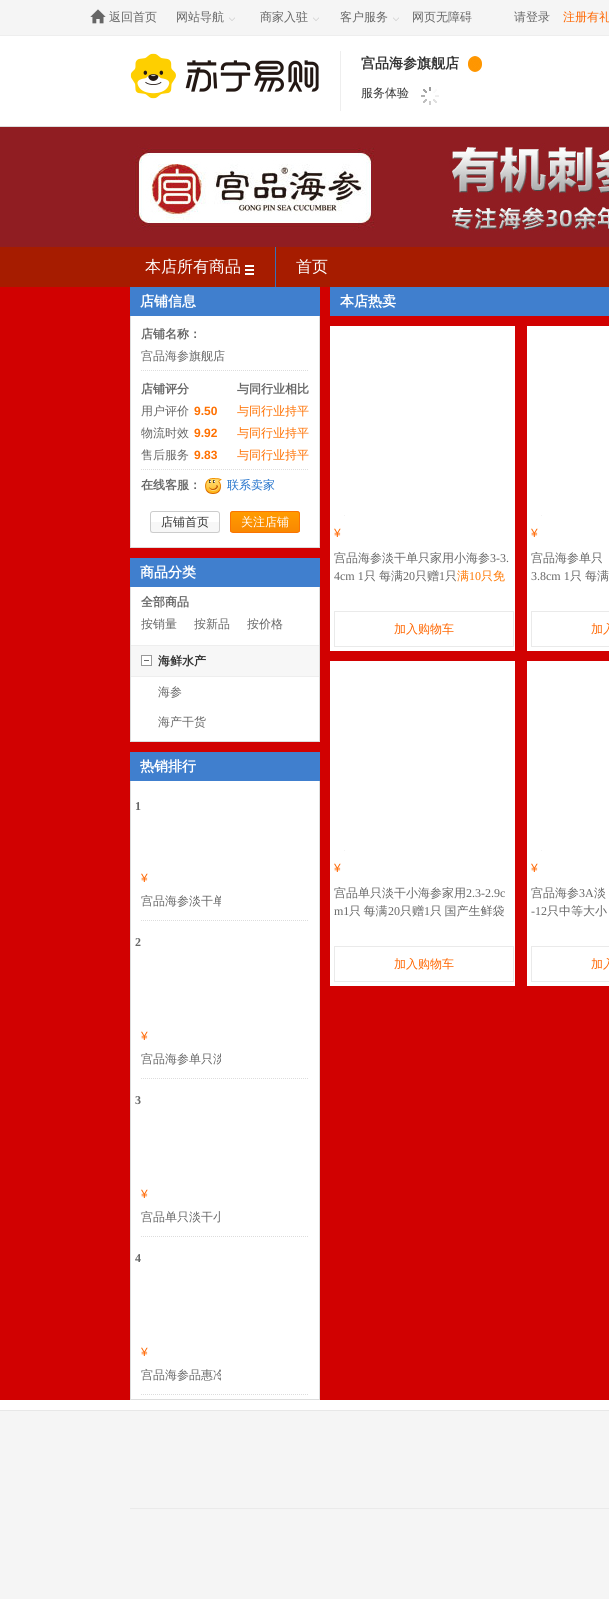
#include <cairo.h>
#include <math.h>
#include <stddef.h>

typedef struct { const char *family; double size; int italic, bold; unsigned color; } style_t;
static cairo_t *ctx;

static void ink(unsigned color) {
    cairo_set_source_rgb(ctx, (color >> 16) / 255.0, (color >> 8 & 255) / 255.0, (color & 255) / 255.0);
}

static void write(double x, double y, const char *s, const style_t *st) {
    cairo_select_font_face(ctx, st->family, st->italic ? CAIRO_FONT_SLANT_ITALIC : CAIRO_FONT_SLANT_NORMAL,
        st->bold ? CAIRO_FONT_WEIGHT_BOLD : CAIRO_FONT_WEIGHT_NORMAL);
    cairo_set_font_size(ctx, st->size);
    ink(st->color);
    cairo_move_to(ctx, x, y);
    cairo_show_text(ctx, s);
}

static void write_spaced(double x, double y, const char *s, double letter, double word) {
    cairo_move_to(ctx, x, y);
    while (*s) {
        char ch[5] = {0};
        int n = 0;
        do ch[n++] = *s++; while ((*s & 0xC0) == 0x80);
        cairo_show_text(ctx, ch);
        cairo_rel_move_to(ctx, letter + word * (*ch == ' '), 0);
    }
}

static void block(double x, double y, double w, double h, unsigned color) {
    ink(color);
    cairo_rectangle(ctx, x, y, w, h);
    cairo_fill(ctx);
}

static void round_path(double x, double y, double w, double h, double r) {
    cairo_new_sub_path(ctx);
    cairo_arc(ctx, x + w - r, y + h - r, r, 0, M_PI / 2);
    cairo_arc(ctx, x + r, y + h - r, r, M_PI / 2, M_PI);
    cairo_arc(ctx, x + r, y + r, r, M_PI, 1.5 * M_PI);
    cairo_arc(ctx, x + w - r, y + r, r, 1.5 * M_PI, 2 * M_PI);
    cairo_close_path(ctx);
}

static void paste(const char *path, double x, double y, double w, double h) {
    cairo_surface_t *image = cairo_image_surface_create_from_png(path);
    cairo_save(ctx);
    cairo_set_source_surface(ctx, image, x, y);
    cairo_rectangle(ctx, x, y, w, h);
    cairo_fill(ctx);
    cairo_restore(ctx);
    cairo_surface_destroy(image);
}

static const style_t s1 = {"WenQuanYi Zen Hei Medium", 12, 0, 0, 0x666666};
static const style_t s2 = {"WenQuanYi Zen Hei Medium", 12, 0, 0, 0xff6600};
static const style_t s3 = {"WenQuanYi Zen Hei", 14, 0, 1, 0x333333};
static const style_t s4 = {"WenQuanYi Zen Hei Medium", 12, 0, 0, 0x333333};
static const style_t s5 = {"WenQuanYi Zen Hei Medium", 16, 0, 0, 0xffffff};
static const style_t s6 = {"WenQuanYi Zen Hei", 14, 0, 1, 0xffffff};
static const style_t s7 = {"WenQuanYi Zen Hei", 12, 0, 1, 0x666666};
static const style_t s8 = {"Liberation Sans", 12, 0, 1, 0xff7000};
static const style_t s9 = {"WenQuanYi Zen Hei Medium", 12, 0, 0, 0xff7000};
static const style_t s10 = {"WenQuanYi Zen Hei Medium", 12, 0, 0, 0x2272cb};
static const style_t s11 = {"WenQuanYi Zen Hei Medium", 12, 0, 0, 0xffffff};
static const style_t s12 = {"WenQuanYi Zen Hei", 12, 0, 1, 0x333333};
static const style_t s13 = {"Liberation Serif", 12, 0, 1, 0x666666};
static const style_t s14 = {"Liberation Sans", 12, 0, 0, 0xff6600};
static const style_t s15 = {"Liberation Serif", 12, 0, 0, 0x666666};
static const style_t s16 = {"WenQuanYi Zen Hei Medium", 12, 0, 0, 0xff7700};
static const style_t s17 = {"Liberation Serif", 12, 0, 0, 0xff7700};

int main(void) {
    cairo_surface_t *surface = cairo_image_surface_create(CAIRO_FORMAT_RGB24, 609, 1599);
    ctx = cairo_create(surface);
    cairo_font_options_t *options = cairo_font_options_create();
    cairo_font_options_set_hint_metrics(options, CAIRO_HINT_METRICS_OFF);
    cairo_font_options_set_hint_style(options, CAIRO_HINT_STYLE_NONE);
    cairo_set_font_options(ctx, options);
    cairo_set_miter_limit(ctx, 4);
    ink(0xffffff);
    cairo_paint(ctx);
    block(0, 0, 609, 35, 0xf5f5f5);
    block(0, 35, 609, 1, 0xeeeeee);
    paste("pic1.png", 90, 9, 16, 15);
    write(109, 21, "返回首页", &s1);
    write(176, 21, "网站导航", &s1);
    paste("pic2.png", 229, 17, 6, 4);
    write(260, 21, "商家入驻", &s1);
    paste("pic2.png", 313, 17, 6, 4);
    write(340, 21, "客户服务", &s1);
    paste("pic2.png", 393, 17, 6, 4);
    write(412, 21, "网页无障碍", &s1);
    write(514, 21, "请登录", &s1);
    write(563, 21, "注册有礼", &s2);
    block(0, 126, 609, 1, 0xdddddd);
    block(340, 51, 1, 60, 0xeeeeee);
    paste("pic3.png", 130, 53, 189, 46);
    write(361, 68, "宫品海参旗舰店", &s3);
    paste("pic4.png", 468, 56, 7, 16);
    paste("pic5.png", 475, 56, 7, 16);
    write(361, 97, "服务体验", &s4);
    paste("pic6.png", 421, 87, 18, 18);
    block(0, 287, 609, 1113, 0xd10101);
    paste("pic7.png", 0, 127, 609, 120);
    block(0, 247, 609, 40, 0xa61c00);
    write(145, 272, "本店所有商品", &s5);
    paste("pic8.png", 245, 265, 9, 10);
    block(275, 247, 1, 40, 0x3771b9);
    write(296, 272, "首页", &s5);
    block(130, 287, 190, 29, 0x407fce);
    write(140, 306, "店铺信息", &s6);
    block(131, 316, 188, 231, 0xffffff);
    block(319, 316, 1, 232, 0xdddddd);
    block(130, 547, 190, 1, 0xdddddd);
    block(130, 316, 1, 232, 0xdddddd);
    cairo_new_path(ctx);
    cairo_move_to(ctx, 141, 370.5);
    cairo_line_to(ctx, 309, 370.5);
    cairo_set_line_width(ctx, 1);
    cairo_set_dash(ctx, (double[]){1, 1}, 2, 0);
    cairo_stroke(ctx);
    write(141, 338, "店铺名称：", &s7);
    write(141, 360, "宫品海参旗舰店", &s1);
    cairo_new_path(ctx);
    cairo_move_to(ctx, 141, 469.5);
    cairo_line_to(ctx, 309, 469.5);
    ink(0xdddddd);
    cairo_stroke(ctx);
    write(141, 393, "店铺评分", &s7);
    write(141, 415, "用户评价", &s1);
    write(194, 415, "9.50", &s8);
    write(141, 437, "物流时效", &s1);
    write(194, 437, "9.92", &s8);
    write(141, 459, "售后服务", &s1);
    write(194, 459, "9.83", &s8);
    write(237, 393, "与同行业相比", &s7);
    write(237, 415, "与同行业持平", &s9);
    write(237, 437, "与同行业持平", &s9);
    write(237, 459, "与同行业持平", &s9);
    write(141, 489, "在线客服：", &s7);
    paste("pic9.png", 205, 478, 17, 16);
    write(227, 489, "联系卖家", &s10);
    block(150, 522, 70, 11, 0xf7f7f7);
    round_path(150.5, 511.5, 69, 21, 2.5);
    ink(0xcccccc);
    cairo_set_dash(ctx, NULL, 0, 0);
    cairo_stroke(ctx);
    write(161, 526, "店铺首页", &s4);
    paste("pic10.png", 230, 511, 70, 21);
    round_path(230.5, 511.5, 69, 21, 2.5);
    ink(0xfa7402);
    cairo_stroke(ctx);
    write(241, 526, "关注店铺", &s11);
    block(130, 558, 190, 29, 0x407fce);
    write(140, 577, "商品分类", &s6);
    block(131, 587, 188, 154, 0xffffff);
    block(319, 587, 1, 155, 0xdddddd);
    block(130, 741, 190, 1, 0xdddddd);
    block(130, 587, 1, 155, 0xdddddd);
    write(141, 606, "全部商品", &s7);
    write(141, 628, "按销量", &s1);
    write(194, 628, "按新品", &s1);
    write(247, 628, "按价格", &s1);
    block(131, 646, 188, 30, 0xf7f7f7);
    block(131, 645, 188, 1, 0xeeeeee);
    paste("pic11.png", 141, 655, 11, 11);
    write(158, 665, "海鲜水产", &s12);
    block(131, 676, 188, 1, 0xeeeeee);
    write(158, 696, "海参", &s1);
    write(158, 726, "海产干货", &s1);
    block(130, 752, 190, 29, 0x407fce);
    write(140, 771, "热销排行", &s6);
    block(131, 781, 188, 618, 0xffffff);
    block(319, 781, 1, 619, 0xdddddd);
    block(130, 1399, 190, 1, 0xdddddd);
    block(130, 781, 1, 619, 0xdddddd);
    cairo_new_path(ctx);
    cairo_move_to(ctx, 141, 920.5);
    cairo_line_to(ctx, 309, 920.5);
    cairo_set_dash(ctx, (double[]){1, 1}, 2, 0);
    cairo_stroke(ctx);
    write(135, 810, "1", &s13);
    write(141, 882, "¥", &s14);
    cairo_save(ctx);
    cairo_rectangle(ctx, 141, 890, 80, 20);
    cairo_clip(ctx);
    write(141, 905, "宫品海参淡干单", &s1);
    cairo_restore(ctx);
    cairo_new_path(ctx);
    cairo_move_to(ctx, 141, 1078.5);
    cairo_line_to(ctx, 309, 1078.5);
    ink(0xdddddd);
    cairo_stroke(ctx);
    write(135, 946, "2", &s13);
    write(141, 1040, "¥", &s14);
    cairo_save(ctx);
    cairo_rectangle(ctx, 141, 1048, 80, 20);
    cairo_clip(ctx);
    write(141, 1063, "宫品海参单只淡", &s1);
    cairo_restore(ctx);
    cairo_new_path(ctx);
    cairo_move_to(ctx, 141, 1236.5);
    cairo_line_to(ctx, 309, 1236.5);
    ink(0xdddddd);
    cairo_stroke(ctx);
    write(135, 1104, "3", &s13);
    write(141, 1198, "¥", &s14);
    cairo_save(ctx);
    cairo_rectangle(ctx, 141, 1206, 80, 20);
    cairo_clip(ctx);
    write(141, 1221, "宫品单只淡干小", &s1);
    cairo_restore(ctx);
    cairo_new_path(ctx);
    cairo_move_to(ctx, 141, 1394.5);
    cairo_line_to(ctx, 309, 1394.5);
    ink(0xdddddd);
    cairo_stroke(ctx);
    write(135, 1262, "4", &s13);
    write(141, 1356, "¥", &s14);
    cairo_save(ctx);
    cairo_rectangle(ctx, 141, 1364, 80, 20);
    cairo_clip(ctx);
    write(141, 1379, "宫品海参品惠冷", &s1);
    cairo_restore(ctx);
    block(330, 287, 279, 29, 0x407fce);
    write(340, 306, "本店热卖", &s6);
    block(330, 326, 185, 325, 0xffffff);
    block(344, 515, 1, 1, 0xf3f3f3);
    write(334, 537, "¥", &s14);
    write(334, 562, "宫品海参淡干单只家用小海参", &s1);
    write(490, 562, "3-3.", &s15);
    write(334, 580, "4cm 1", &s15);
    write(364, 580, "只", &s1);
    write(379, 580, "每满", &s1);
    write(403, 580, "20", &s15);
    write(415, 580, "只赠", &s1);
    write(439, 580, "1", &s15);
    write(445, 580, "只", &s1);
    write(457, 580, "满", &s16);
    write(469, 580, "10", &s17);
    write(481, 580, "只免", &s16);
    cairo_rectangle(ctx, 334.5, 611.5, 179, 35);
    ink(0xeaeaea);
    cairo_set_dash(ctx, NULL, 0, 0);
    cairo_stroke(ctx);
    write(394, 633, "加入购物车", &s2);
    block(527, 326, 82, 325, 0xffffff);
    block(541, 515, 1, 1, 0xf3f3f3);
    write(531, 537, "¥", &s14);
    write(531, 562, "宫品海参单只", &s1);
    write(531, 580, "3.8cm 1", &s15);
    write(570, 580, "只", &s1);
    write(585, 580, "每满", &s1);
    cairo_rectangle(ctx, 531.5, 611.5, 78, 35);
    ink(0xeaeaea);
    cairo_stroke(ctx);
    write(591, 633, "加入", &s2);
    block(330, 661, 185, 325, 0xffffff);
    block(344, 850, 1, 1, 0xf3f3f3);
    write(334, 872, "¥", &s14);
    write(334, 897, "宫品单只淡干小海参家用", &s1);
    write(466, 897, "2.3-2.9c", &s15);
    write(334, 915, "m1", &s15);
    cairo_select_font_face(ctx, "WenQuanYi Zen Hei Medium", CAIRO_FONT_SLANT_NORMAL, CAIRO_FONT_WEIGHT_NORMAL);
    write_spaced(349, 915, "只 每满", 0, -1);
    write(388, 915, "20", &s15);
    write(400, 915, "只赠", &s1);
    write(424, 915, "1", &s15);
    cairo_select_font_face(ctx, "WenQuanYi Zen Hei Medium", CAIRO_FONT_SLANT_NORMAL, CAIRO_FONT_WEIGHT_NORMAL);
    write_spaced(430, 915, "只 国产生鲜袋", 0, -1);
    cairo_rectangle(ctx, 334.5, 946.5, 179, 35);
    ink(0xeaeaea);
    cairo_stroke(ctx);
    write(394, 968, "加入购物车", &s2);
    block(527, 661, 82, 325, 0xffffff);
    block(541, 850, 1, 1, 0xf3f3f3);
    write(531, 872, "¥", &s14);
    write(531, 897, "宫品海参", &s1);
    write(579, 897, "3A", &s15);
    write(594, 897, "淡", &s1);
    write(531, 915, "-12", &s15);
    write(547, 915, "只中等大小", &s1);
    cairo_rectangle(ctx, 531.5, 946.5, 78, 35);
    ink(0xeaeaea);
    cairo_stroke(ctx);
    write(591, 968, "加入", &s2);
    block(0, 1411, 609, 188, 0xf5f5f5);
    block(0, 1410, 609, 1, 0xe7e7e7);
    block(130, 1508, 479, 1, 0xeaeaea);
    cairo_surface_write_to_png(surface, "screenshot.png");
    cairo_font_options_destroy(options);
    cairo_destroy(ctx);
    cairo_surface_destroy(surface);
    return 0;
}
